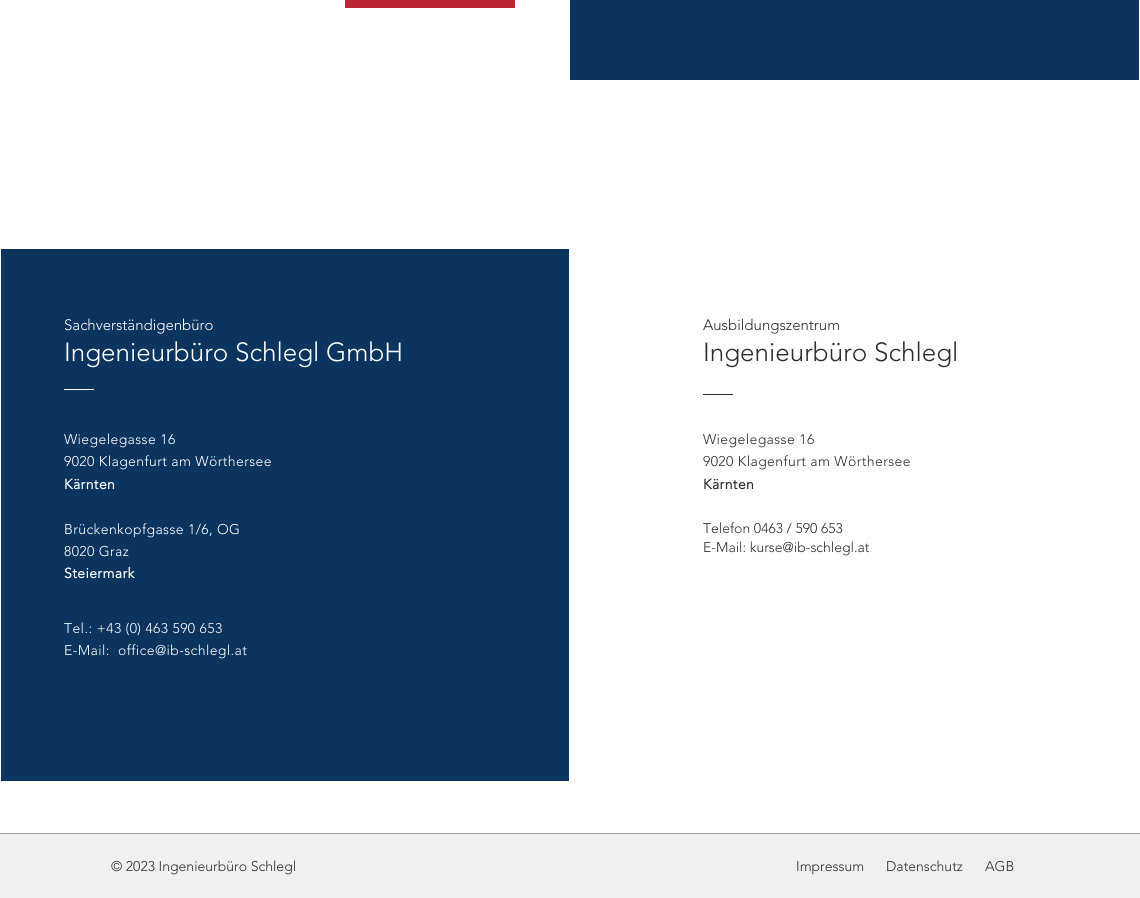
#include <cairo.h>
#include <math.h>
#include <stddef.h>

typedef struct { const char *family; double size; int italic, bold; unsigned color; } style_t;
static cairo_t *ctx;

static void ink(unsigned color) {
    cairo_set_source_rgb(ctx, (color >> 16) / 255.0, (color >> 8 & 255) / 255.0, (color & 255) / 255.0);
}

static void write(double x, double y, const char *s, const style_t *st) {
    cairo_select_font_face(ctx, st->family, st->italic ? CAIRO_FONT_SLANT_ITALIC : CAIRO_FONT_SLANT_NORMAL,
        st->bold ? CAIRO_FONT_WEIGHT_BOLD : CAIRO_FONT_WEIGHT_NORMAL);
    cairo_set_font_size(ctx, st->size);
    ink(st->color);
    cairo_move_to(ctx, x, y);
    cairo_show_text(ctx, s);
}

static void write_spaced(double x, double y, const char *s, double letter, double word) {
    cairo_move_to(ctx, x, y);
    while (*s) {
        char ch[5] = {0};
        int n = 0;
        do ch[n++] = *s++; while ((*s & 0xC0) == 0x80);
        cairo_show_text(ctx, ch);
        cairo_rel_move_to(ctx, letter + word * (*ch == ' '), 0);
    }
}

static void block(double x, double y, double w, double h, unsigned color) {
    ink(color);
    cairo_rectangle(ctx, x, y, w, h);
    cairo_fill(ctx);
}

static const style_t s1 = {"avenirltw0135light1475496 Light", 15, 0, 0, 0xffffff};
static const style_t s2 = {"avenirltw0135light1475496 Light", 26, 0, 0, 0xffffff};
static const style_t s3 = {"avenirltw0135light1475496 Light", 15, 0, 0, 0x2f2e2e};
static const style_t s4 = {"avenirltw0135light1475496 Light", 26, 0, 0, 0x2f2e2e};
static const style_t s5 = {"avenirltw0135light1475496 Light", 14, 0, 0, 0x2f2e2e};

int main(void) {
    cairo_surface_t *surface = cairo_image_surface_create(CAIRO_FORMAT_RGB24, 1140, 898);
    ctx = cairo_create(surface);
    cairo_font_options_t *options = cairo_font_options_create();
    cairo_font_options_set_hint_metrics(options, CAIRO_HINT_METRICS_OFF);
    cairo_font_options_set_hint_style(options, CAIRO_HINT_STYLE_NONE);
    cairo_set_font_options(ctx, options);
    cairo_set_miter_limit(ctx, 4);
    ink(0xffffff);
    cairo_paint(ctx);
    block(345, 0, 170, 8, 0xbf2633);
    block(570, 0, 569, 80, 0x0b345f);
    block(1, 249, 568, 532, 0x0b345f);
    write(64, 330, "Sachverständigenbüro", &s1);
    write(64, 361, "Ingenieurbüro Schlegl GmbH", &s2);
    block(64, 389, 30, 1, 0xffffff);
    cairo_set_font_size(ctx, 14);
    write_spaced(64, 444, "Wiegelegasse 16", 0.4, 0);
    write_spaced(64, 466, "9020 Klagenfurt am Wörthersee", 0.4, 0);
    cairo_select_font_face(ctx, "avenirltw0135light1475496", CAIRO_FONT_SLANT_NORMAL, CAIRO_FONT_WEIGHT_BOLD);
    write_spaced(64, 489, "Kärnten", 0.4, 0);
    cairo_select_font_face(ctx, "avenirltw0135light1475496 Light", CAIRO_FONT_SLANT_NORMAL, CAIRO_FONT_WEIGHT_NORMAL);
    write_spaced(64, 534, "Brückenkopfgasse 1/6, OG", 0.4, 0);
    write_spaced(64, 556, "8020 Graz", 0.4, 0);
    cairo_select_font_face(ctx, "avenirltw0135light1475496", CAIRO_FONT_SLANT_NORMAL, CAIRO_FONT_WEIGHT_BOLD);
    write_spaced(64, 578, "Steiermark", 0.4, 0);
    cairo_select_font_face(ctx, "avenirltw0135light1475496 Light", CAIRO_FONT_SLANT_NORMAL, CAIRO_FONT_WEIGHT_NORMAL);
    write_spaced(64, 633, "Tel.: +43 (0) 463 590 653", 0.4, 0);
    write_spaced(64, 655, "E-Mail:", 0.4, 0);
    write_spaced(118, 655, "office@ib-schlegl.at", 0.4, 0);
    write(703, 330, "Ausbildungszentrum", &s3);
    write(703, 361, "Ingenieurbüro Schlegl", &s4);
    block(703, 394, 30, 1, 0x2f2e2e);
    cairo_set_font_size(ctx, 14);
    write_spaced(703, 444, "Wiegelegasse 16", 0.4, 0);
    write_spaced(703, 466, "9020 Klagenfurt am Wörthersee", 0.4, 0);
    cairo_select_font_face(ctx, "avenirltw0135light1475496", CAIRO_FONT_SLANT_NORMAL, CAIRO_FONT_WEIGHT_BOLD);
    write_spaced(703, 489, "Kärnten", 0.4, 0);
    write(703, 533, "Telefon 0463 / 590 653", &s5);
    write(703, 552, "E-Mail: kurse@ib-schlegl.at", &s5);
    block(0, 834, 1140, 64, 0xf0f0f0);
    block(0, 833, 1140, 1, 0xa0a09f);
    write(111, 871, "© 2023 Ingenieurbüro Schlegl", &s5);
    write(796, 871, "Impressum", &s5);
    write(886, 871, "Datenschutz", &s5);
    write(985, 871, "AGB", &s5);
    cairo_surface_write_to_png(surface, "screenshot.png");
    cairo_font_options_destroy(options);
    cairo_destroy(ctx);
    cairo_surface_destroy(surface);
    return 0;
}
